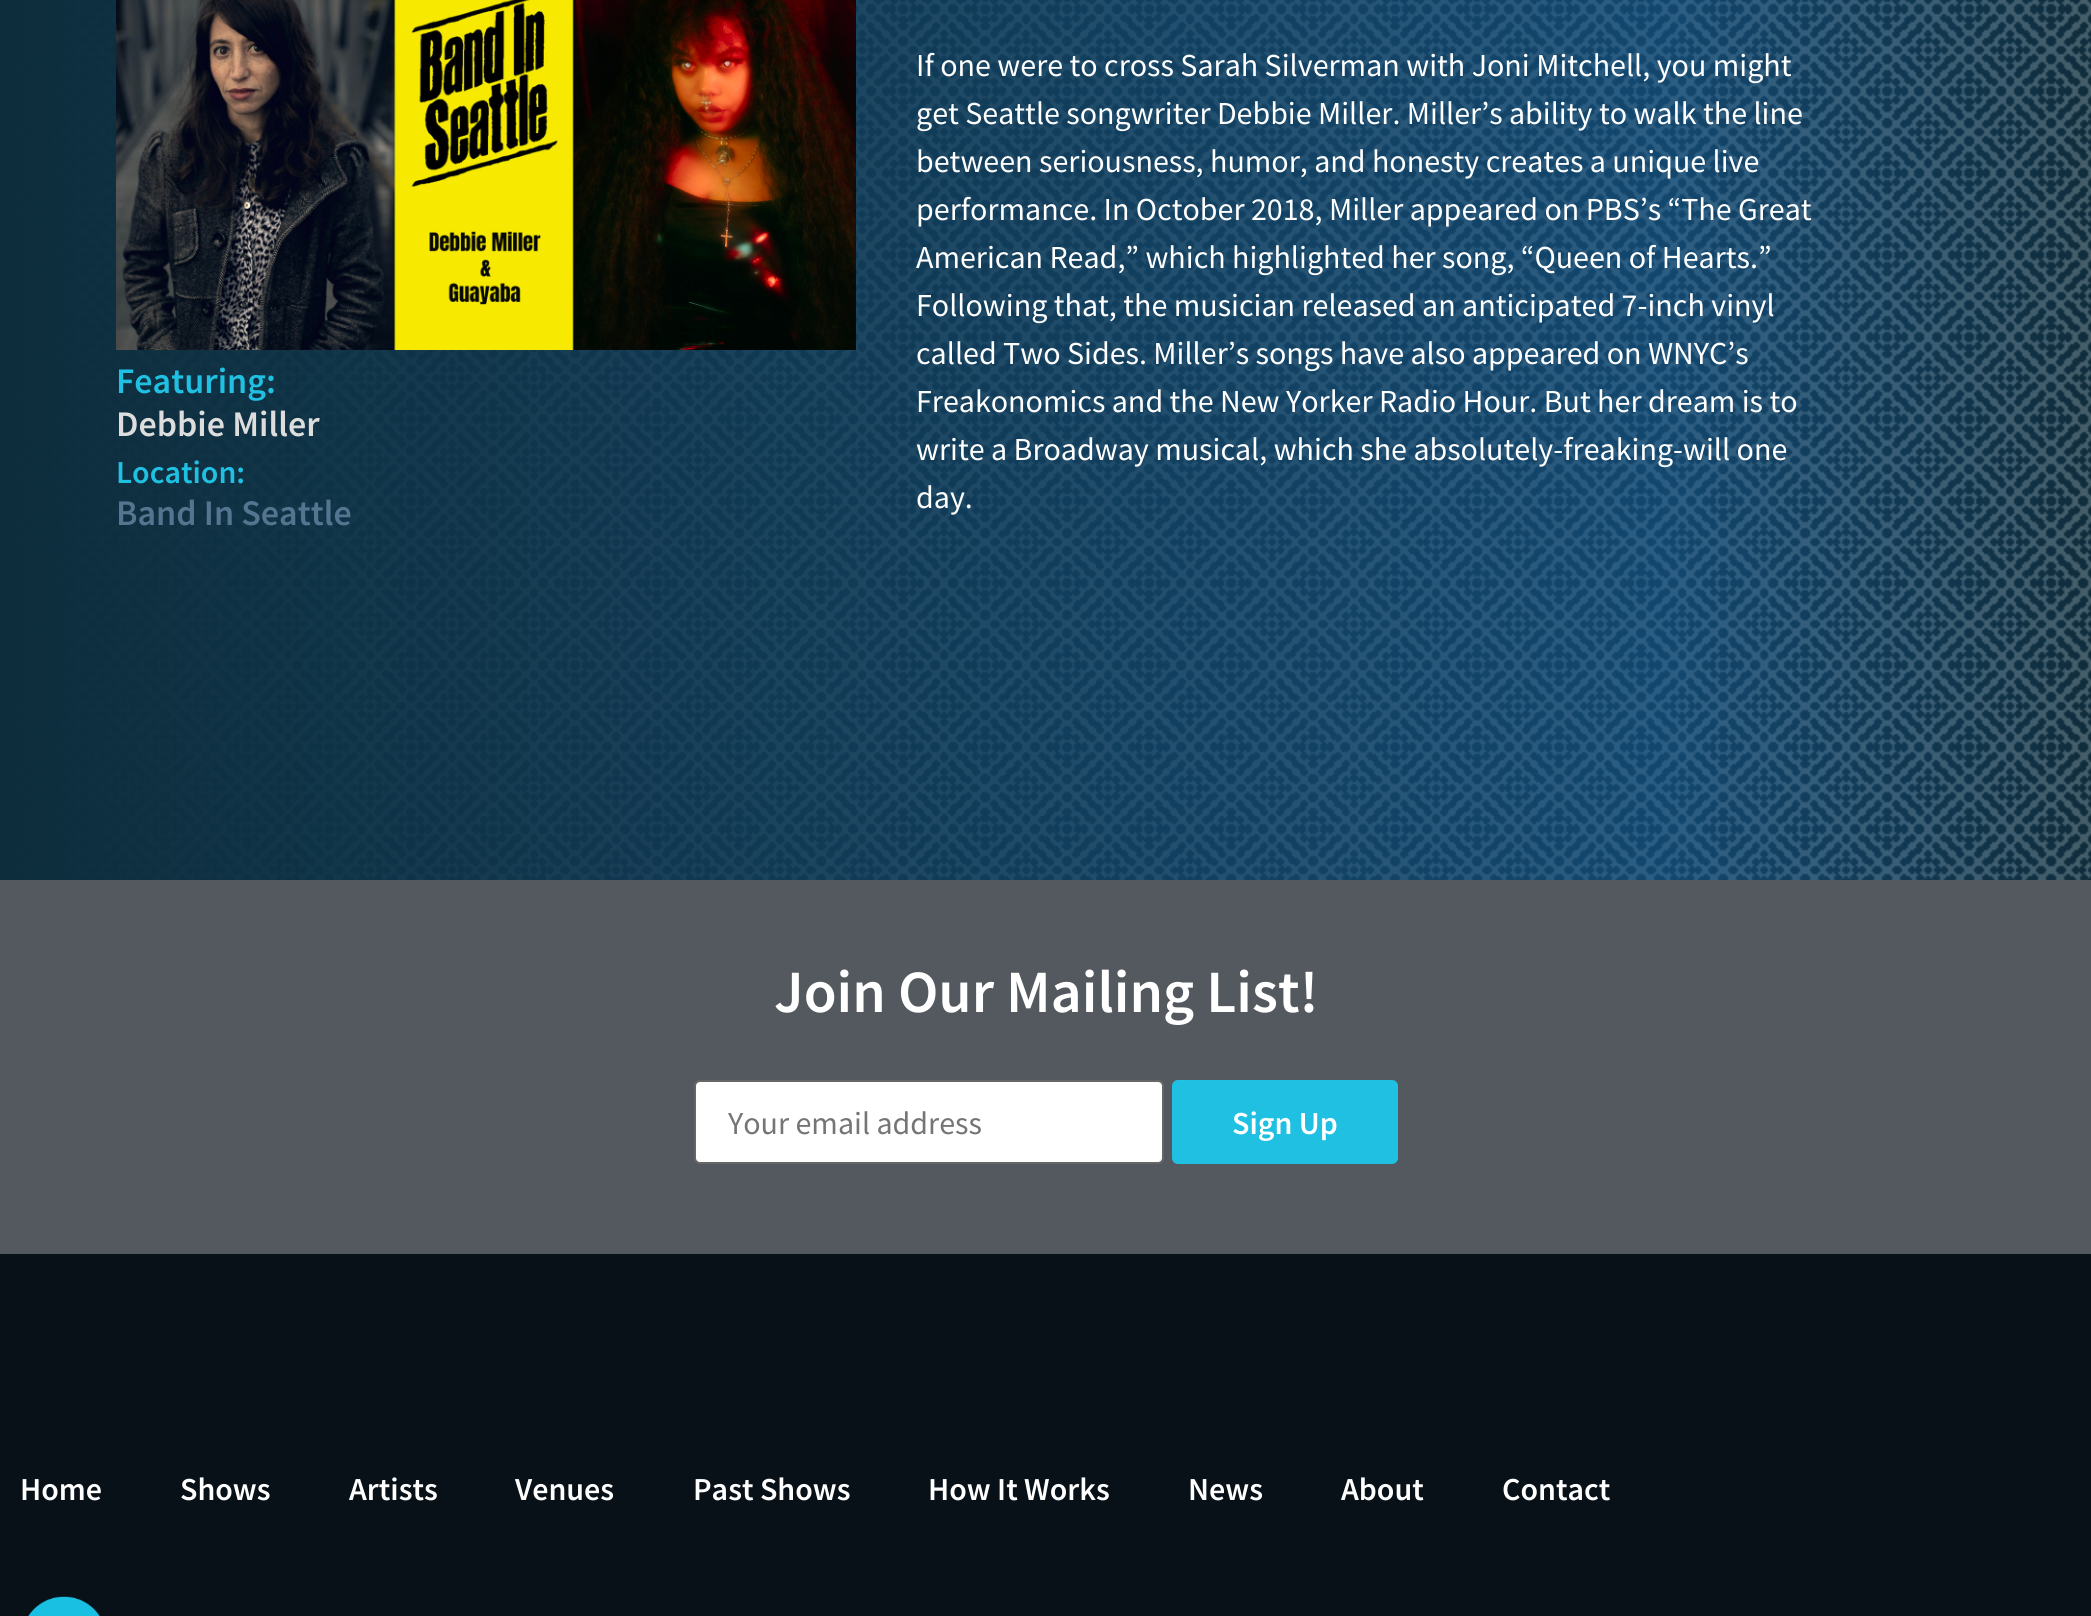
#include <cairo.h>
#include <math.h>
#include <stddef.h>

typedef struct { const char *family; double size; int italic, bold; unsigned color; } style_t;
static cairo_t *ctx;

static void ink(unsigned color) {
    cairo_set_source_rgb(ctx, (color >> 16) / 255.0, (color >> 8 & 255) / 255.0, (color & 255) / 255.0);
}

static void write(double x, double y, const char *s, const style_t *st) {
    cairo_select_font_face(ctx, st->family, st->italic ? CAIRO_FONT_SLANT_ITALIC : CAIRO_FONT_SLANT_NORMAL,
        st->bold ? CAIRO_FONT_WEIGHT_BOLD : CAIRO_FONT_WEIGHT_NORMAL);
    cairo_set_font_size(ctx, st->size);
    ink(st->color);
    cairo_move_to(ctx, x, y);
    cairo_show_text(ctx, s);
}

static void block(double x, double y, double w, double h, unsigned color) {
    ink(color);
    cairo_rectangle(ctx, x, y, w, h);
    cairo_fill(ctx);
}

static void round_path(double x, double y, double w, double h, double r) {
    cairo_new_sub_path(ctx);
    cairo_arc(ctx, x + w - r, y + h - r, r, 0, M_PI / 2);
    cairo_arc(ctx, x + r, y + h - r, r, M_PI / 2, M_PI);
    cairo_arc(ctx, x + r, y + r, r, M_PI, 1.5 * M_PI);
    cairo_arc(ctx, x + w - r, y + r, r, 1.5 * M_PI, 2 * M_PI);
    cairo_close_path(ctx);
}

static void paste(const char *path, double x, double y, double w, double h) {
    cairo_surface_t *image = cairo_image_surface_create_from_png(path);
    cairo_save(ctx);
    cairo_set_source_surface(ctx, image, x, y);
    cairo_rectangle(ctx, x, y, w, h);
    cairo_fill(ctx);
    cairo_restore(ctx);
    cairo_surface_destroy(image);
}

static const style_t s1 = {"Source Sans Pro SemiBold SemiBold", 36, 0, 0, 0x1fc0e2};
static const style_t s2 = {"Source Sans Pro SemiBold SemiBold", 36, 0, 0, 0xdddddd};
static const style_t s3 = {"Source Sans Pro SemiBold SemiBold", 32, 0, 0, 0x1fc0e2};
static const style_t s4 = {"Source Sans Pro SemiBold SemiBold", 36, 0, 0, 0x55748f};
static const style_t s5 = {"Source Sans Pro", 32, 0, 0, 0xffffff};
static const style_t s6 = {"Source Sans Pro SemiBold SemiBold", 60, 0, 0, 0xffffff};
static const style_t s7 = {"Source Sans Pro", 32, 0, 0, 0x757575};
static const style_t s8 = {"Source Sans Pro SemiBold SemiBold", 32, 0, 0, 0xffffff};

int main(void) {
    cairo_surface_t *surface = cairo_image_surface_create(CAIRO_FORMAT_RGB24, 2091, 1616);
    ctx = cairo_create(surface);
    cairo_font_options_t *options = cairo_font_options_create();
    cairo_font_options_set_hint_metrics(options, CAIRO_HINT_METRICS_OFF);
    cairo_font_options_set_hint_style(options, CAIRO_HINT_STYLE_NONE);
    cairo_set_font_options(ctx, options);
    cairo_set_miter_limit(ctx, 4);
    ink(0xffffff);
    cairo_paint(ctx);
    paste("pic1.png", 0, 0, 2091, 880);
    paste("pic2.png", 116, 0, 740, 350);
    write(116, 393, "Featuring:", &s1);
    write(116, 436, "Debbie Miller", &s2);
    write(116, 483, "Location:", &s3);
    write(116, 525, "Band In Seattle", &s4);
    write(916, 76, "If one were to cross Sarah Silverman with Joni Mitchell, you might", &s5);
    write(916, 124, "get Seattle songwriter Debbie Miller. Miller’s ability to walk the line", &s5);
    write(916, 172, "between seriousness, humor, and honesty creates a unique live", &s5);
    write(916, 220, "performance. In October 2018, Miller appeared on PBS’s “The Great", &s5);
    write(916, 268, "American Read,” which highlighted her song, “Queen of Hearts.”", &s5);
    write(916, 316, "Following that, the musician released an anticipated 7-inch vinyl", &s5);
    write(916, 364, "called Two Sides. Miller’s songs have also appeared on WNYC’s", &s5);
    write(916, 412, "Freakonomics and the New Yorker Radio Hour. But her dream is to", &s5);
    write(916, 460, "write a Broadway musical, which she absolutely-freaking-will one", &s5);
    write(916, 508, "day.", &s5);
    block(0, 880, 2091, 374, 0x54595f);
    write(774, 1012, "Join Our Mailing List!", &s6);
    round_path(695, 1081, 468, 82, 5);
    cairo_fill_preserve(ctx);
    ink(0x666666);
    cairo_stroke(ctx);
    write(728, 1134, "Your email address", &s7);
    ink(0x1fc0e2);
    round_path(1172, 1080, 226, 84, 6);
    cairo_fill(ctx);
    write(1232, 1134, "Sign Up", &s8);
    block(0, 1254, 2091, 362, 0x081018);
    write(20, 1500, "Home", &s8);
    write(180, 1500, "Shows", &s8);
    write(349, 1500, "Artists", &s8);
    write(515, 1500, "Venues", &s8);
    write(693, 1500, "Past Shows", &s8);
    write(928, 1500, "How It Works", &s8);
    write(1188, 1500, "News", &s8);
    write(1341, 1500, "About", &s8);
    write(1502, 1500, "Contact", &s8);
    paste("pic3.png", 28, 1596, 72, 20);
    cairo_surface_write_to_png(surface, "screenshot.png");
    cairo_font_options_destroy(options);
    cairo_destroy(ctx);
    cairo_surface_destroy(surface);
    return 0;
}
